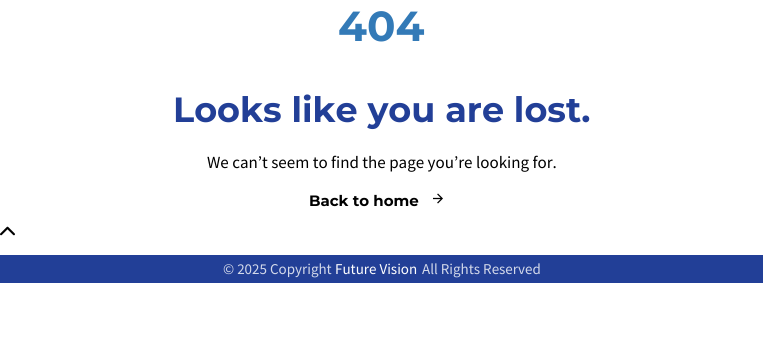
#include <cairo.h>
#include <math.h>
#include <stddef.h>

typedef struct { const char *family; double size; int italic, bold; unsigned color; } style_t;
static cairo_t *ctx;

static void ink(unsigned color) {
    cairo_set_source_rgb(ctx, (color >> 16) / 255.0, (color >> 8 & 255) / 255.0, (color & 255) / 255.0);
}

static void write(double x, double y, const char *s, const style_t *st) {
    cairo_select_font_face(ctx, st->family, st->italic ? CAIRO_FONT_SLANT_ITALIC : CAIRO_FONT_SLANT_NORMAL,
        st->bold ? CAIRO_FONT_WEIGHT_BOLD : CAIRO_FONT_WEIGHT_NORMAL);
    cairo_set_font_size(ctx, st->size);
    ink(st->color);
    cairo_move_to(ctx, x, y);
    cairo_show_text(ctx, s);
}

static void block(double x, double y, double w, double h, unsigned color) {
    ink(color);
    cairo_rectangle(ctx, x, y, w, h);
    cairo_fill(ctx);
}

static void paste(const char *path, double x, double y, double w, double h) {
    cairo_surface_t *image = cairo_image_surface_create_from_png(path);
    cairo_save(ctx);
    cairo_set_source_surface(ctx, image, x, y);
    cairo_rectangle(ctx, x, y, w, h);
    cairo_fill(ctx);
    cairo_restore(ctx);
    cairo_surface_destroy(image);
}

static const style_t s1 = {"Montserrat", 42, 0, 1, 0x337ab7};
static const style_t s2 = {"Montserrat", 35, 0, 1, 0x223f97};
static const style_t s3 = {"Source Sans Pro", 17, 0, 0, 0x000000};
static const style_t s4 = {"Montserrat", 15, 0, 1, 0x000000};
static const style_t s5 = {"Source Sans Pro", 15, 0, 0, 0xd3d9ea};
static const style_t s6 = {"Source Sans Pro", 15, 0, 0, 0xffffff};

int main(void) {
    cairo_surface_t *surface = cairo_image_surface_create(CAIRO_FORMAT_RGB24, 763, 343);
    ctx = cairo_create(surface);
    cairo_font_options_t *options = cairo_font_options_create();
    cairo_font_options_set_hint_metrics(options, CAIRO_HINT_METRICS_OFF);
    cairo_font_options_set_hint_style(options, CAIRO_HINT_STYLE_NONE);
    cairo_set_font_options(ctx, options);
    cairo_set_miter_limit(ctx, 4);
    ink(0xffffff);
    cairo_paint(ctx);
    write(338, 41, "404", &s1);
    write(173, 122, "Looks like you are lost.", &s2);
    write(207, 168, "We can’t seem to find the page you’re looking for.", &s3);
    write(309, 206, "Back to home", &s4);
    paste("pic1.png", 433, 193, 10, 11);
    paste("pic2.png", 0, 226, 15, 10);
    block(0, 255, 763, 28, 0x223f97);
    write(223, 274, "© 2025 Copyright", &s5);
    write(335, 274, "Future Vision", &s6);
    write(422, 274, "All Rights Reserved", &s5);
    cairo_surface_write_to_png(surface, "screenshot.png");
    cairo_font_options_destroy(options);
    cairo_destroy(ctx);
    cairo_surface_destroy(surface);
    return 0;
}
